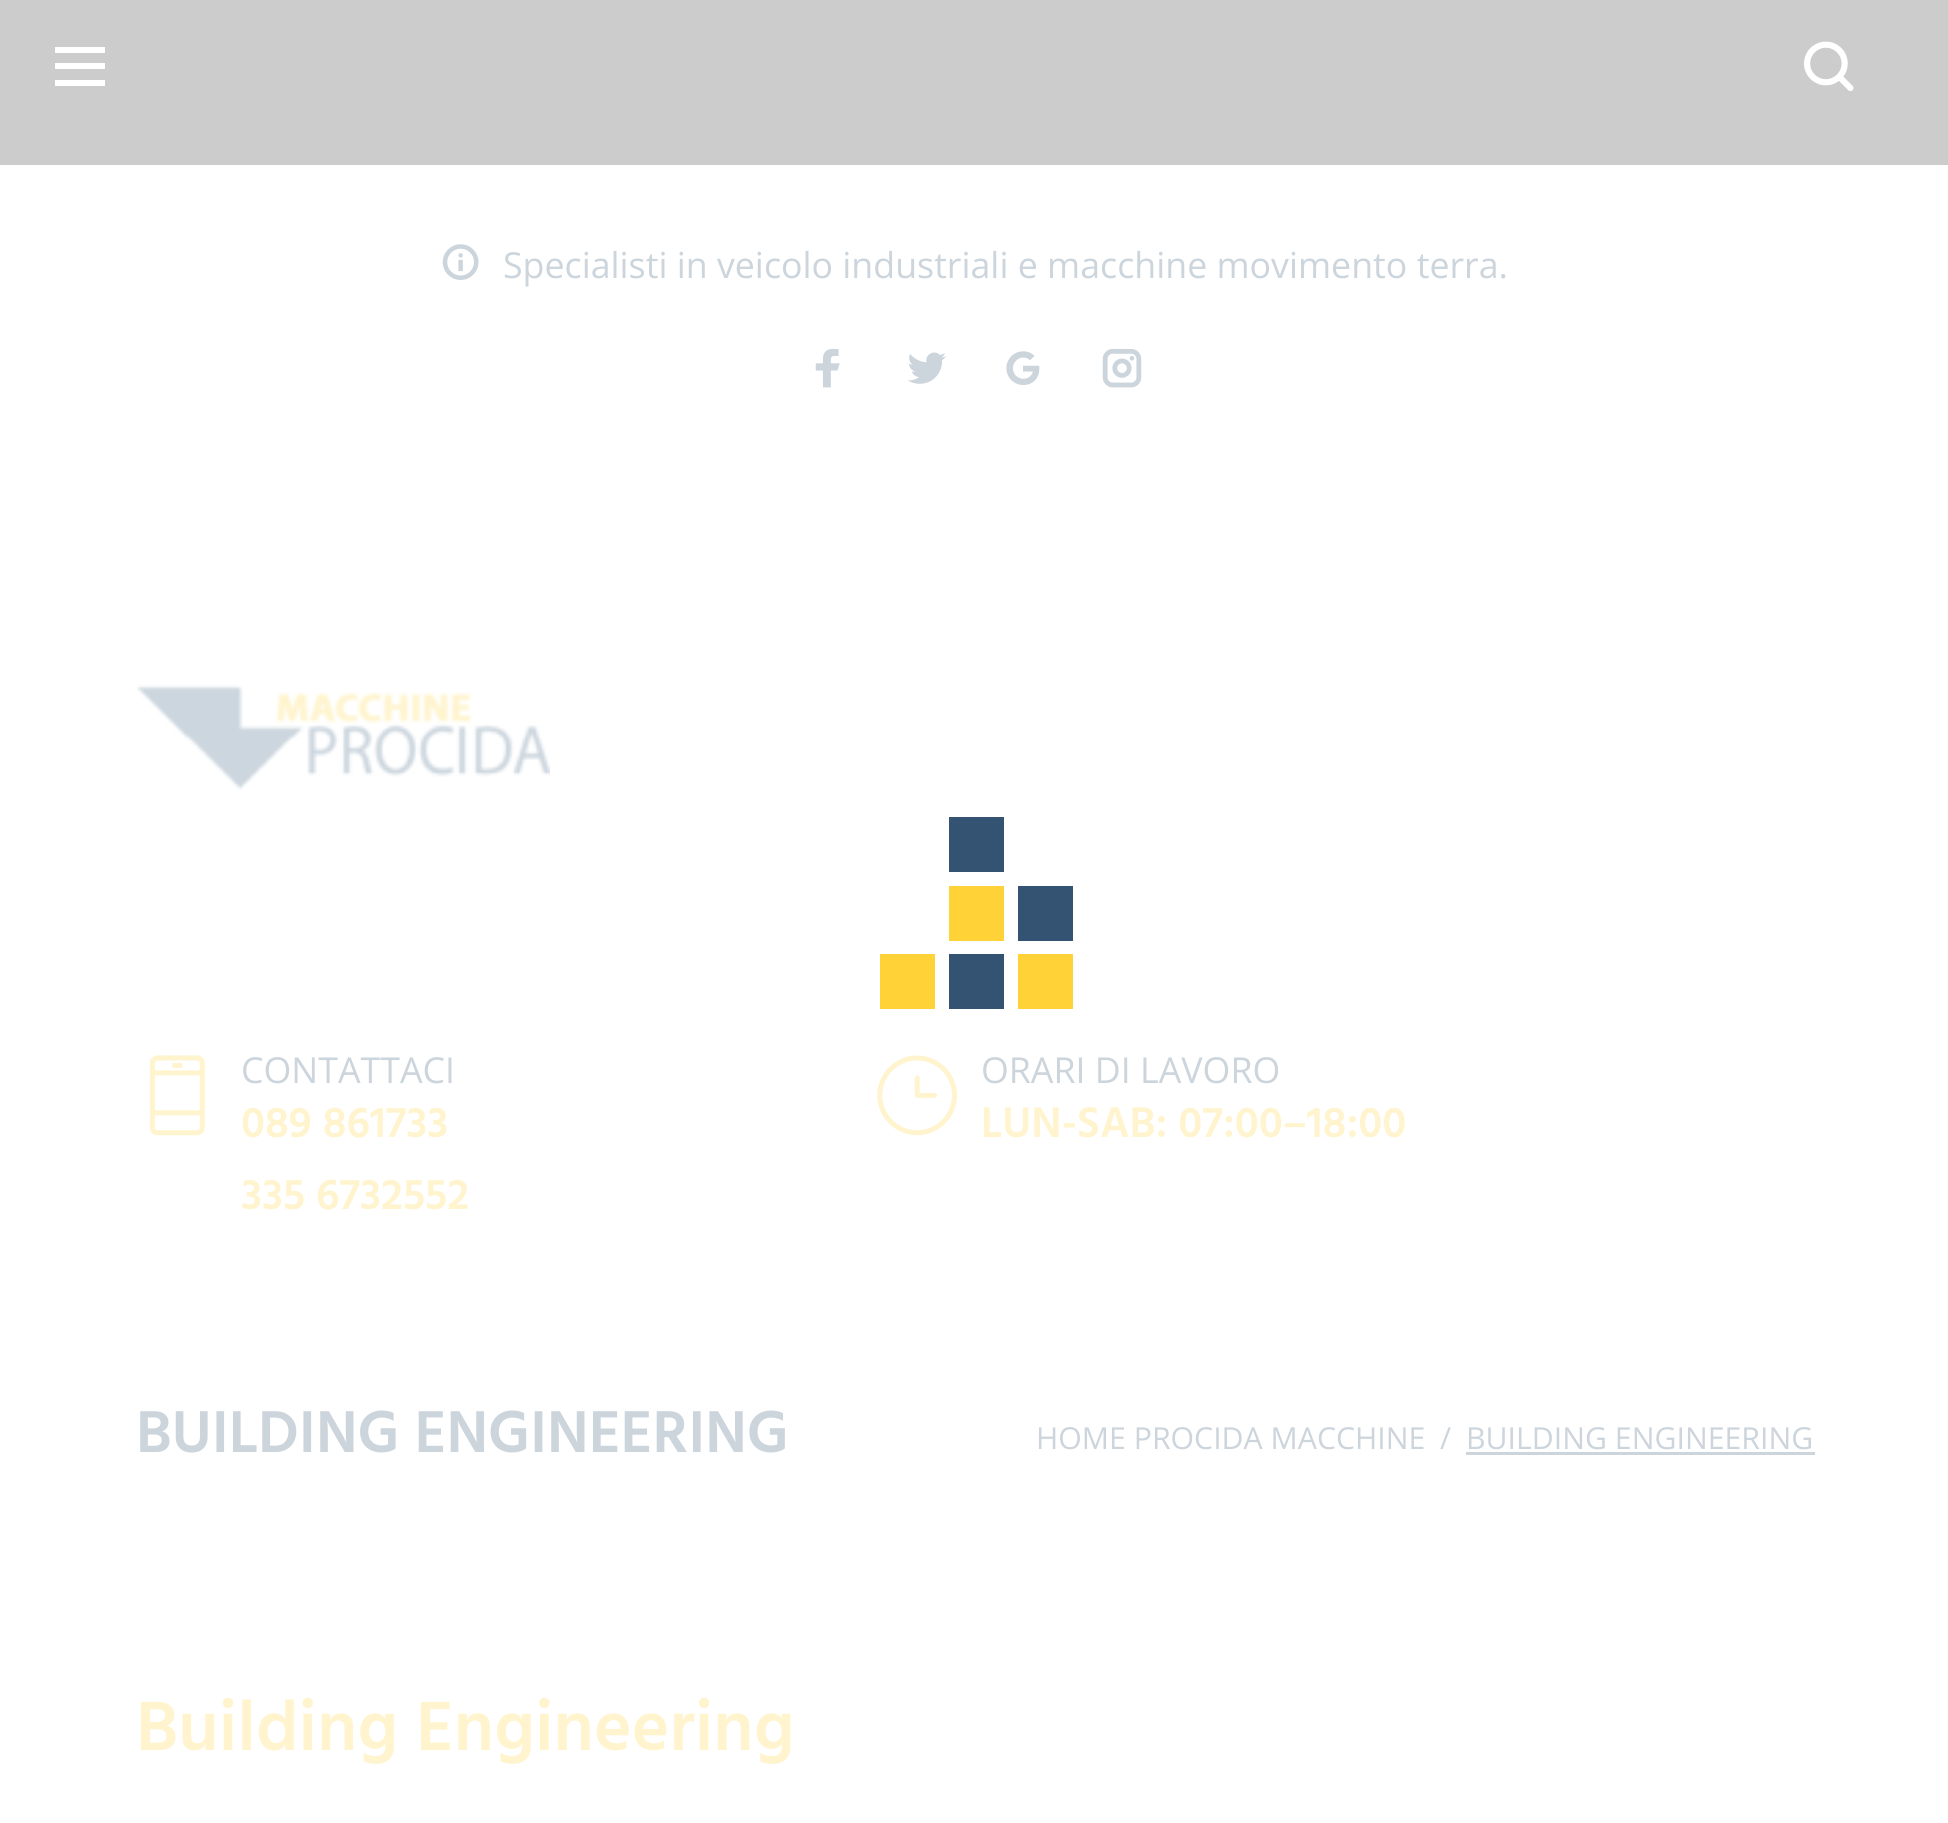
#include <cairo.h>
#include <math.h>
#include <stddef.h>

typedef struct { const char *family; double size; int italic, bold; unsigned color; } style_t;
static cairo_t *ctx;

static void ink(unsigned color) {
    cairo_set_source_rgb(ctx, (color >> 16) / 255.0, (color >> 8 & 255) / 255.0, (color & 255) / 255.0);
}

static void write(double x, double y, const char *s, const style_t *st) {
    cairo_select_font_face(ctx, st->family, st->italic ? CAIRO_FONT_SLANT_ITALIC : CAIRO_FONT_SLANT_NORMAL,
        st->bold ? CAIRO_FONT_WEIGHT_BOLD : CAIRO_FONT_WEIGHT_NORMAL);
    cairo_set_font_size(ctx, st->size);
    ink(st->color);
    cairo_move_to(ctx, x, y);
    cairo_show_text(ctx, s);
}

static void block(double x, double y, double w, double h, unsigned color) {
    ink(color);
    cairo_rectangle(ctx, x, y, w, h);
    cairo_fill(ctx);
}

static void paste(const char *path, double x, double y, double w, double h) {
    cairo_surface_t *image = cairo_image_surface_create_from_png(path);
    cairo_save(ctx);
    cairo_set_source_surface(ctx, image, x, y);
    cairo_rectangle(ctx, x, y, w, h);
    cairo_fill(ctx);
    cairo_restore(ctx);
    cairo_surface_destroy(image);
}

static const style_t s1 = {"Open Sans", 35.75, 0, 0, 0xccd4dc};
static const style_t s2 = {"Hind SemiBold", 44, 0, 0, 0xfff4cd};
static const style_t s3 = {"Hind SemiBold", 60.5, 0, 0, 0xccd4dc};
static const style_t s4 = {"Open Sans", 30.25, 0, 0, 0xccd4dc};
static const style_t s5 = {"Hind SemiBold", 71.5, 0, 0, 0xfff4cd};

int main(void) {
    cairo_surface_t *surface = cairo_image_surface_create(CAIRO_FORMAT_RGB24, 1948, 1823);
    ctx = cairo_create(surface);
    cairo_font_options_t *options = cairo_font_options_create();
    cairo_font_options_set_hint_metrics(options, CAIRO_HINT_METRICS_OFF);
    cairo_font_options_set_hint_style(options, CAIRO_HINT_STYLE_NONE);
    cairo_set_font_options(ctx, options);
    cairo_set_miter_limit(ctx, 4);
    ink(0xffffff);
    cairo_paint(ctx);
    block(0, 0, 1948, 165, 0xcccccc);
    block(55, 63, 50, 6, 0xffffff);
    block(55, 47, 50, 6, 0xffffff);
    block(55, 80, 50, 6, 0xffffff);
    paste("pic1.png", 1804, 41, 50, 51);
    paste("pic2.png", 442, 244, 37, 36);
    write(503, 278, "Specialisti in veicolo industriali e macchine movimento terra.", &s1);
    paste("pic3.png", 815, 348, 25, 40);
    paste("pic4.png", 907, 352, 39, 32);
    paste("pic5.png", 1006, 351, 34, 34);
    paste("pic6.png", 1102, 348, 40, 40);
    paste("pic7.png", 137, 684, 413, 107);
    paste("pic8.png", 149, 1055, 56, 81);
    write(241, 1083, "CONTATTACI", &s1);
    write(241, 1137, "089 861733", &s2);
    write(241, 1209, "335 6732552", &s2);
    paste("pic9.png", 877, 1055, 80, 81);
    write(981, 1083, "ORARI DI LAVORO", &s1);
    write(981, 1137, "LUN-SAB: 07:00–18:00", &s2);
    write(136, 1452, "BUILDING ENGINEERING", &s3);
    write(1036, 1449, "HOME PROCIDA MACCHINE", &s4);
    write(1440, 1449, "/", &s4);
    write(1466, 1449, "BUILDING ENGINEERING", &s4);
    block(1466, 1452, 349, 3, 0xccd4dc);
    write(136, 1750, "Building Engineering", &s5);
    block(949, 817, 55, 55, 0x345372);
    block(949, 886, 55, 55, 0xffd237);
    block(1018, 886, 55, 55, 0x345372);
    block(880, 954, 55, 55, 0xffd237);
    block(949, 954, 55, 55, 0x345372);
    block(1018, 954, 55, 55, 0xffd237);
    cairo_surface_write_to_png(surface, "screenshot.png");
    cairo_font_options_destroy(options);
    cairo_destroy(ctx);
    cairo_surface_destroy(surface);
    return 0;
}
